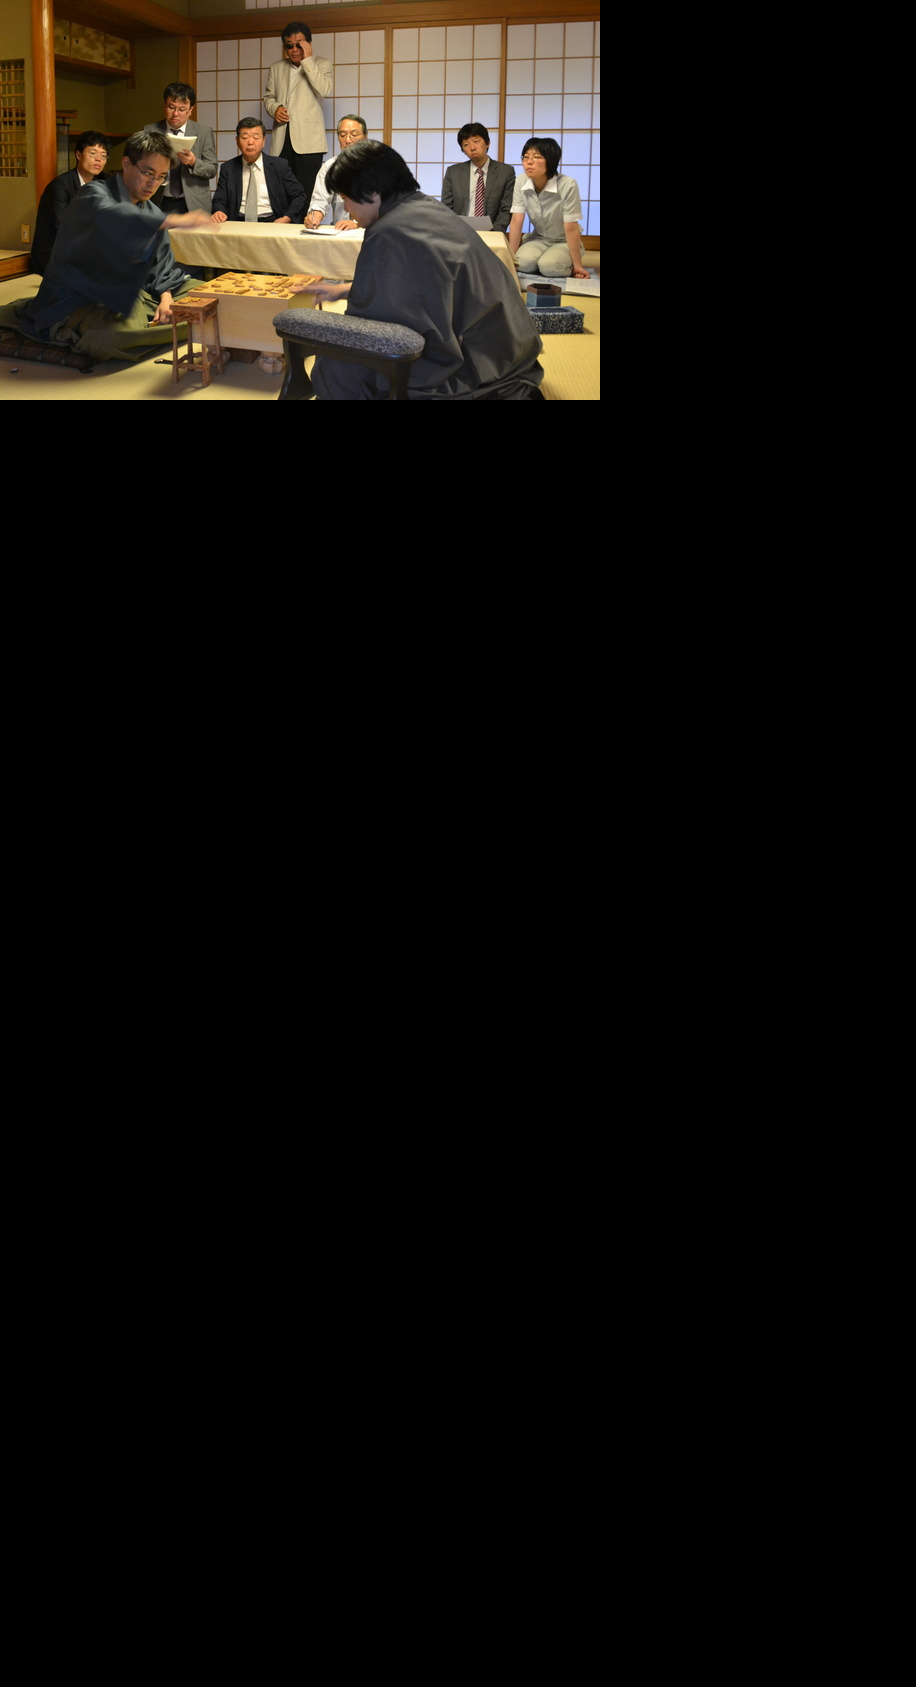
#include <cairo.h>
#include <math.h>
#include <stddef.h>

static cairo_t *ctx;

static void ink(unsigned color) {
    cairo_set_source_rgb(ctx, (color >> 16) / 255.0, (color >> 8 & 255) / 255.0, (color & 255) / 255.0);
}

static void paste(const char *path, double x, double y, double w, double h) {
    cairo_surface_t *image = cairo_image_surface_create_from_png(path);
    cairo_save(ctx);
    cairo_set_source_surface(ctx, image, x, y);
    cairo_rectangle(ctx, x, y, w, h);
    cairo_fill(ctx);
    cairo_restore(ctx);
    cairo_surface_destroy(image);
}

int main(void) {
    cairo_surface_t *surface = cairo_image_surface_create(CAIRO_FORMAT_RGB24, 916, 1687);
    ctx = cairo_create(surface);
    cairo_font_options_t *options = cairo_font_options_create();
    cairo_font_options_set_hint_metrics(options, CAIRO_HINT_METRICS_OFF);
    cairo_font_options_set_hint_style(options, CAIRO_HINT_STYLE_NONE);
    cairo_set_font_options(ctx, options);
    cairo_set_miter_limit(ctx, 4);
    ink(0x000000);
    cairo_paint(ctx);
    paste("pic1.png", 0, 0, 600, 400);
    cairo_surface_write_to_png(surface, "screenshot.png");
    cairo_font_options_destroy(options);
    cairo_destroy(ctx);
    cairo_surface_destroy(surface);
    return 0;
}
